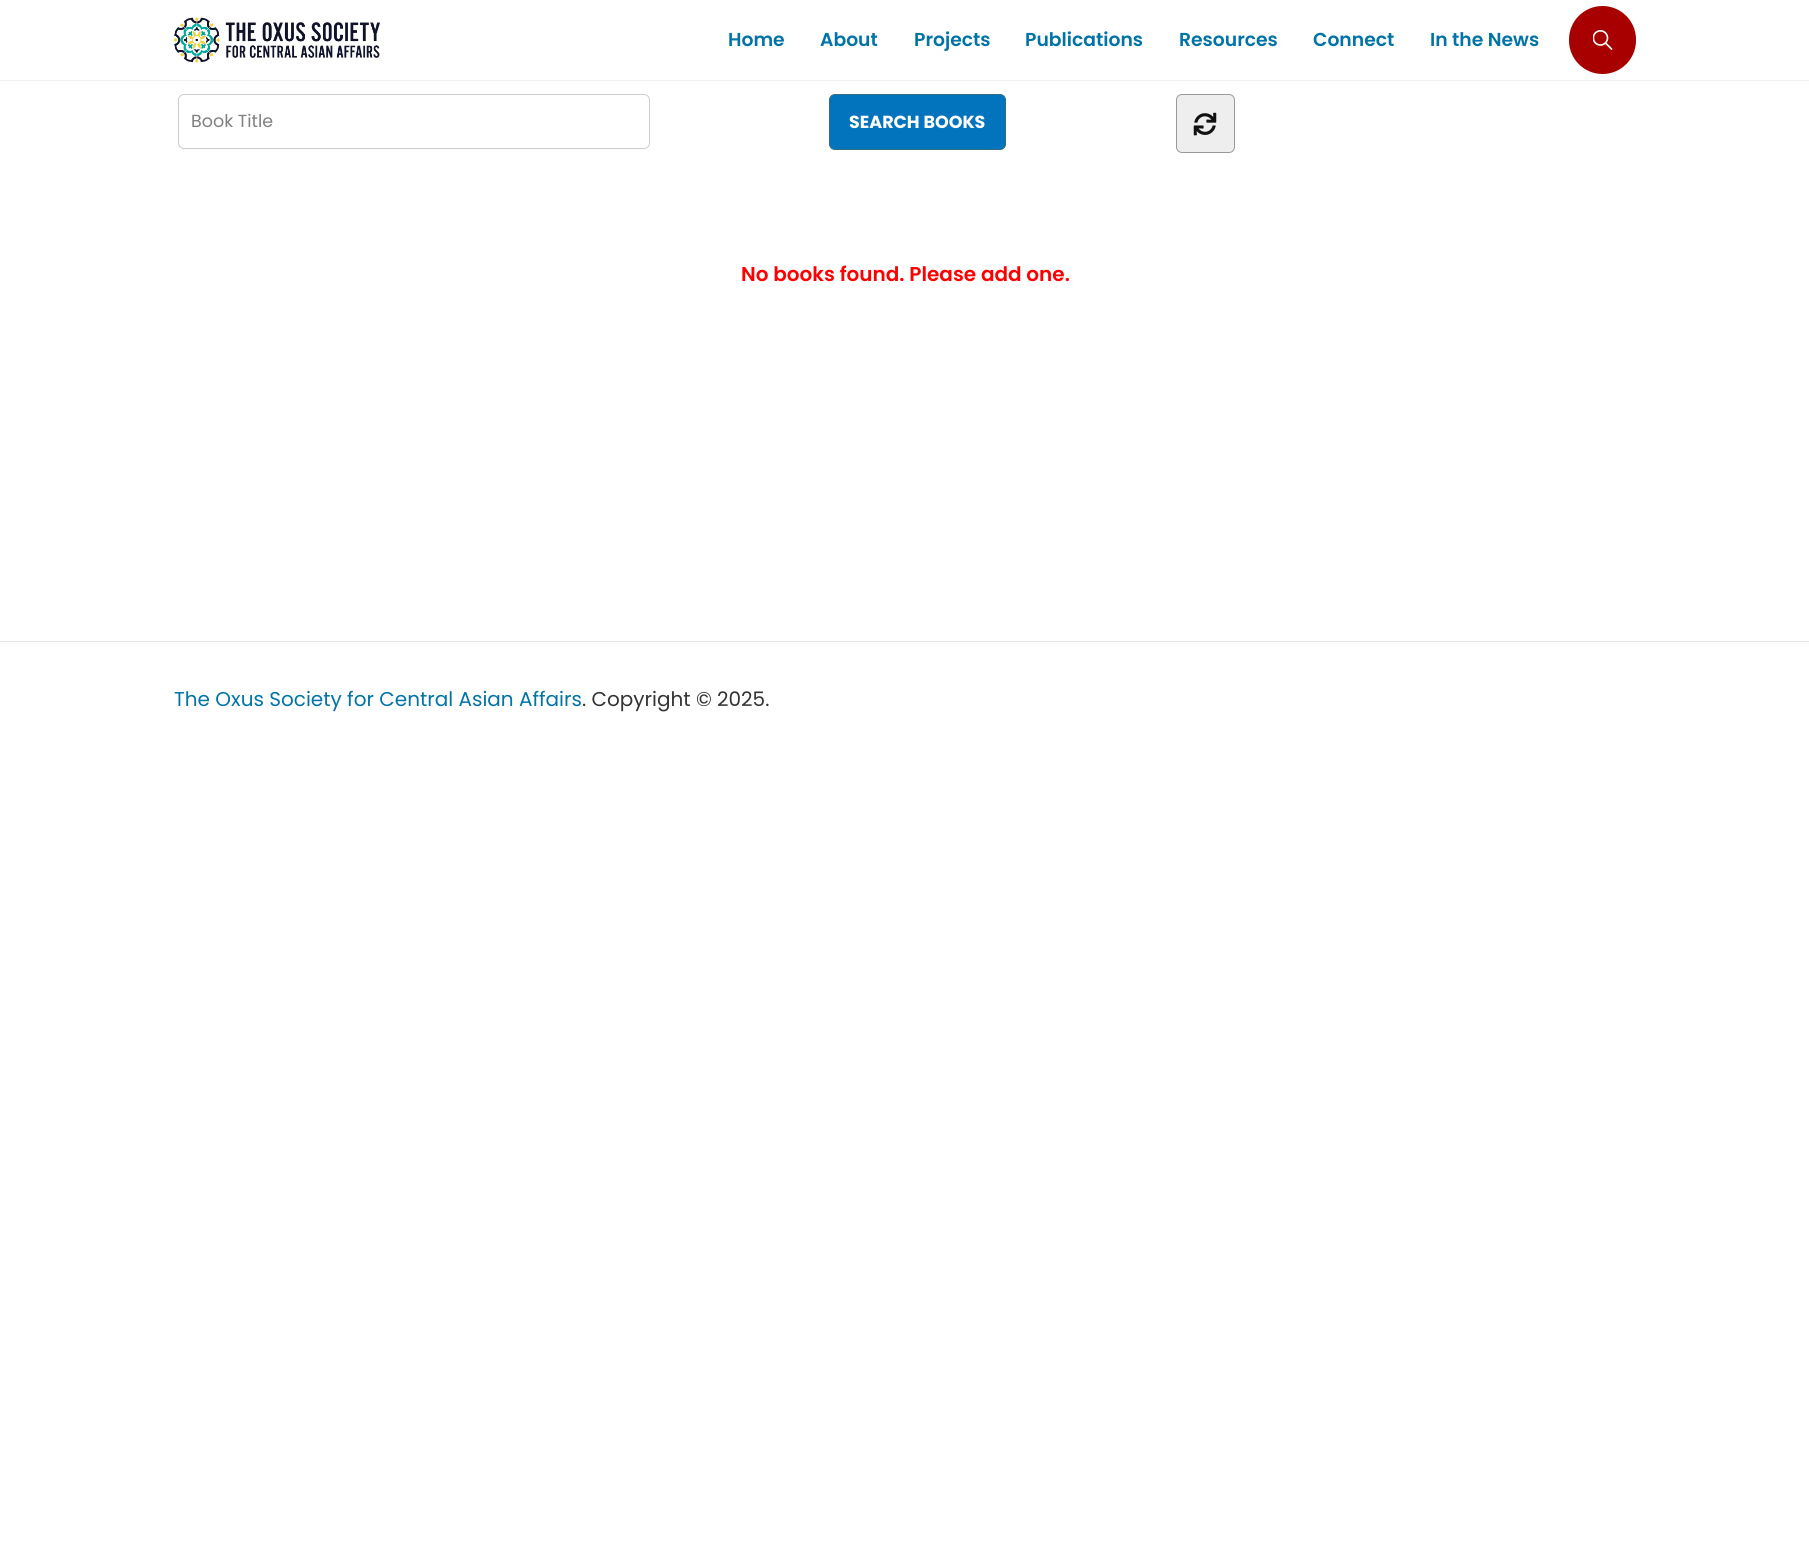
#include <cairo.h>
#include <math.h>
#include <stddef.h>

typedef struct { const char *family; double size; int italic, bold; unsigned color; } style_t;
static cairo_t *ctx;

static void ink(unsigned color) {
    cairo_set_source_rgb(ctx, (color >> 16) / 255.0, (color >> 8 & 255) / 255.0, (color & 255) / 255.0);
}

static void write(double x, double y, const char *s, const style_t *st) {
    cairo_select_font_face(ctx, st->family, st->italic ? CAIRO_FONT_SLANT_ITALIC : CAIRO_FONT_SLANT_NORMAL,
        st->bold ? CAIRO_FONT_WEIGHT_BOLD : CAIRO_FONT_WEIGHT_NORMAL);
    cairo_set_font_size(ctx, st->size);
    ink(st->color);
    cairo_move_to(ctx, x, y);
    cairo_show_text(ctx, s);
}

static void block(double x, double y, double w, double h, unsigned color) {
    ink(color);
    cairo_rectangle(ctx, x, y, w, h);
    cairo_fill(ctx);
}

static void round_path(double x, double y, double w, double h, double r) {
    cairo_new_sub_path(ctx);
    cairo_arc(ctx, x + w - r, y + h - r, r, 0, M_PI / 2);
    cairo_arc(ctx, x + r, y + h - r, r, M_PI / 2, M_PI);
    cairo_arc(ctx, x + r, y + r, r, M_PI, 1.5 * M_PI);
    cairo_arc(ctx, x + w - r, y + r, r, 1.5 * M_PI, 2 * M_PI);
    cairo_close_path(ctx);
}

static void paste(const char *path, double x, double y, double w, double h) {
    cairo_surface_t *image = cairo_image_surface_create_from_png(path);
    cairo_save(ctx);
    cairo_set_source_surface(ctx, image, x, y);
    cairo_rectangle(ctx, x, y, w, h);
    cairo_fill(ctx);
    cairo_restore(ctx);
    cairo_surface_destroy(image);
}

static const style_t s1 = {"Poppins SemiBold", 18.75, 0, 0, 0x0073a8};
static const style_t s2 = {"Poppins", 17.5, 0, 0, 0x808080};
static const style_t s3 = {"Poppins", 17.5, 0, 1, 0xffffff};
static const style_t s4 = {"Poppins SemiBold", 20, 0, 0, 0xff0000};
static const style_t s5 = {"Poppins", 20, 0, 0, 0x0073a8};
static const style_t s6 = {"Poppins", 20, 0, 0, 0x333333};

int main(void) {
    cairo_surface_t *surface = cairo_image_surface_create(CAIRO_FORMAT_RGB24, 1809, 1555);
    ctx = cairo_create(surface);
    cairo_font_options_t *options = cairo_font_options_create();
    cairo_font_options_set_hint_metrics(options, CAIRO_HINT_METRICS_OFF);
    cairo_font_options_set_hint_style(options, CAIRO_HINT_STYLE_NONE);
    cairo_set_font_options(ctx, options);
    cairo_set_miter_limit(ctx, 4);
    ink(0xffffff);
    cairo_paint(ctx);
    block(0, 80, 1809, 1, 0xf2f2f2);
    paste("pic1.png", 173, 17, 207, 46);
    write(728, 46, "Home", &s1);
    write(820, 46, "About", &s1);
    write(914, 46, "Projects", &s1);
    write(1025, 46, "Publications", &s1);
    write(1179, 46, "Resources", &s1);
    write(1313, 46, "Connect", &s1);
    write(1430, 46, "In the News", &s1);
    ink(0xa80000);
    round_path(1569, 6, 67, 68, 33.5);
    cairo_fill(ctx);
    paste("pic2.png", 1593, 30, 20, 20);
    round_path(178.5, 94.5, 471, 54, 5.5);
    ink(0xcccccc);
    cairo_set_line_width(ctx, 1);
    cairo_stroke(ctx);
    write(191, 127, "Book Title", &s2);
    ink(0x0274be);
    round_path(829.5, 94.5, 176, 55, 5.5);
    cairo_fill_preserve(ctx);
    ink(0x317081);
    cairo_stroke(ctx);
    write(849, 128, "SEARCH BOOKS", &s3);
    ink(0xeeeeee);
    round_path(1176.5, 94.5, 58, 58, 5.5);
    cairo_fill_preserve(ctx);
    ink(0x999999);
    cairo_stroke(ctx);
    paste("pic3.png", 1193, 112, 24, 24);
    write(741, 281, "No books found. Please add one.", &s4);
    block(0, 641, 1809, 1, 0xe6e6e6);
    write(174, 706, "The Oxus Society for Central Asian Affairs", &s5);
    write(582, 706, ". Copyright © 2025.", &s6);
    cairo_surface_write_to_png(surface, "screenshot.png");
    cairo_font_options_destroy(options);
    cairo_destroy(ctx);
    cairo_surface_destroy(surface);
    return 0;
}
